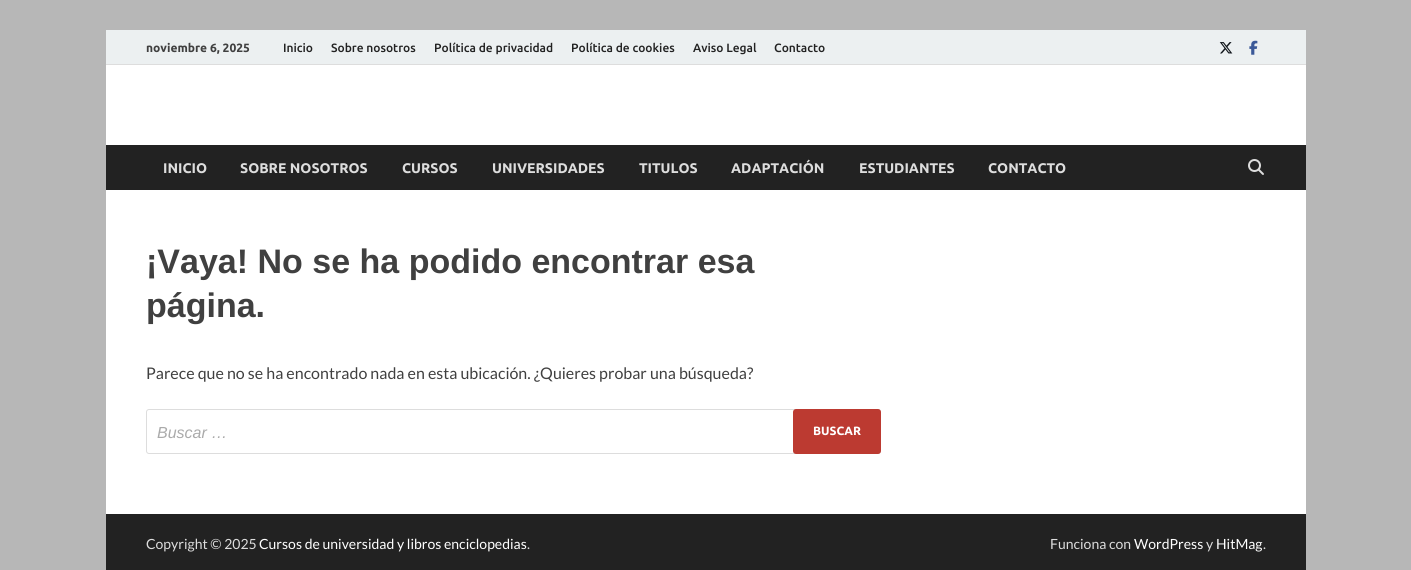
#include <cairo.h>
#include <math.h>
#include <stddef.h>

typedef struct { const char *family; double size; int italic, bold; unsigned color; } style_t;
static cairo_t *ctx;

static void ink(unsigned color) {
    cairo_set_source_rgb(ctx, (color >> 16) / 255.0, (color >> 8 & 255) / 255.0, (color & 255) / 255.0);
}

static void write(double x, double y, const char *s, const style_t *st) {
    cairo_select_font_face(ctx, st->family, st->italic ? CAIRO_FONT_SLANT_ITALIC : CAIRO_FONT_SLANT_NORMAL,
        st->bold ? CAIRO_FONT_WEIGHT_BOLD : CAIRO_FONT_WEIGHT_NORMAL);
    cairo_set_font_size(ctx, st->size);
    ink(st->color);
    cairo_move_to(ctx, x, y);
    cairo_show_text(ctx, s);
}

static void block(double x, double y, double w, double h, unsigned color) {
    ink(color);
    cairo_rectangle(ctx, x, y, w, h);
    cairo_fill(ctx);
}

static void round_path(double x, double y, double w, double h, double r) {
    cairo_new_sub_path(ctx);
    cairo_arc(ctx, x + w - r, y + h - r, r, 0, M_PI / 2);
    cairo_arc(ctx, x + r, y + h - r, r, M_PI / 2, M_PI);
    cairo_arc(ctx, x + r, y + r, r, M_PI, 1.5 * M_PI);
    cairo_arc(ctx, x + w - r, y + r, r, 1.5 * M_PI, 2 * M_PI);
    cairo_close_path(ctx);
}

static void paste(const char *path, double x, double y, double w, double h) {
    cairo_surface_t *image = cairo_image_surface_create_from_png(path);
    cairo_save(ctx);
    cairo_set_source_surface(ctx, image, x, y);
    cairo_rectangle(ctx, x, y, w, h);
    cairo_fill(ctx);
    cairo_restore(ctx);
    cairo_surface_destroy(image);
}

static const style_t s1 = {"Ubuntu", 12, 0, 1, 0x404040};
static const style_t s2 = {"Ubuntu Medium", 12, 0, 0, 0x222222};
static const style_t s3 = {"Ubuntu", 14, 0, 1, 0xdddddd};
static const style_t s4 = {"Liberation Sans", 34, 0, 1, 0x404040};
static const style_t s5 = {"Lato", 16, 0, 0, 0x404040};
static const style_t s6 = {"Liberation Sans", 16, 1, 0, 0xaaaaaa};
static const style_t s7 = {"Ubuntu", 12, 0, 1, 0xffffff};
static const style_t s8 = {"Lato", 14, 0, 0, 0xdddddd};
static const style_t s9 = {"Lato", 14, 0, 0, 0xffffff};

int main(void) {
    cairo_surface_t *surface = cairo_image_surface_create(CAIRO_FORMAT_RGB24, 1411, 570);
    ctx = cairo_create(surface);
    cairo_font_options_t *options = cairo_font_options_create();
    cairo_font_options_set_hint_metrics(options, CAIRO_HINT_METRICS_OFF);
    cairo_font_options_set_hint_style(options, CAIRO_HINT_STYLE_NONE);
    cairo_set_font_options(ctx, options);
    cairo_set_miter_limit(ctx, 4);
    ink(0xb7b7b7);
    cairo_paint(ctx);
    block(106, 65, 1200, 449, 0xffffff);
    block(106, 30, 1200, 34, 0xecf0f1);
    block(106, 64, 1200, 1, 0xdddddd);
    write(146, 52, "noviembre 6, 2025", &s1);
    write(283, 52, "Inicio", &s2);
    write(331, 52, "Sobre nosotros", &s2);
    write(434, 52, "Política de privacidad", &s2);
    write(571, 52, "Política de cookies", &s2);
    write(693, 52, "Aviso Legal", &s2);
    write(774, 52, "Contacto", &s2);
    paste("pic1.png", 1219, 42, 14, 12);
    paste("pic2.png", 1249, 40, 9, 15);
    block(106, 145, 1200, 45, 0x222222);
    write(163, 173, "INICIO", &s3);
    write(240, 173, "SOBRE NOSOTROS", &s3);
    write(402, 173, "CURSOS", &s3);
    write(492, 173, "UNIVERSIDADES", &s3);
    write(639, 173, "TITULOS", &s3);
    write(731, 173, "ADAPTACIÓN", &s3);
    write(859, 173, "ESTUDIANTES", &s3);
    write(988, 173, "CONTACTO", &s3);
    paste("pic3.png", 1248, 159, 16, 16);
    write(146, 273, "¡Vaya! No se ha podido encontrar esa", &s4);
    write(146, 317, "página.", &s4);
    write(146, 379, "Parece que no se ha encontrado nada en esta ubicación. ¿Quieres probar una búsqueda?", &s5);
    round_path(146.5, 409.5, 734, 44, 2.5);
    ink(0xdddddd);
    cairo_set_line_width(ctx, 1);
    cairo_stroke(ctx);
    write(157, 438, "Buscar …", &s6);
    ink(0xbc3a31);
    round_path(793, 409, 88, 45, 3);
    cairo_fill(ctx);
    write(813, 435, "BUSCAR", &s7);
    block(106, 514, 1200, 56, 0x222222);
    write(146, 549, "Copyright © 2025", &s8);
    write(259, 549, "Cursos de universidad y libros enciclopedias", &s9);
    write(527, 549, ".", &s8);
    write(1050, 549, "Funciona con", &s8);
    write(1134, 549, "WordPress", &s9);
    write(1206, 549, "y", &s8);
    write(1216, 549, "HitMag", &s9);
    write(1263, 549, ".", &s8);
    cairo_surface_write_to_png(surface, "screenshot.png");
    cairo_font_options_destroy(options);
    cairo_destroy(ctx);
    cairo_surface_destroy(surface);
    return 0;
}
